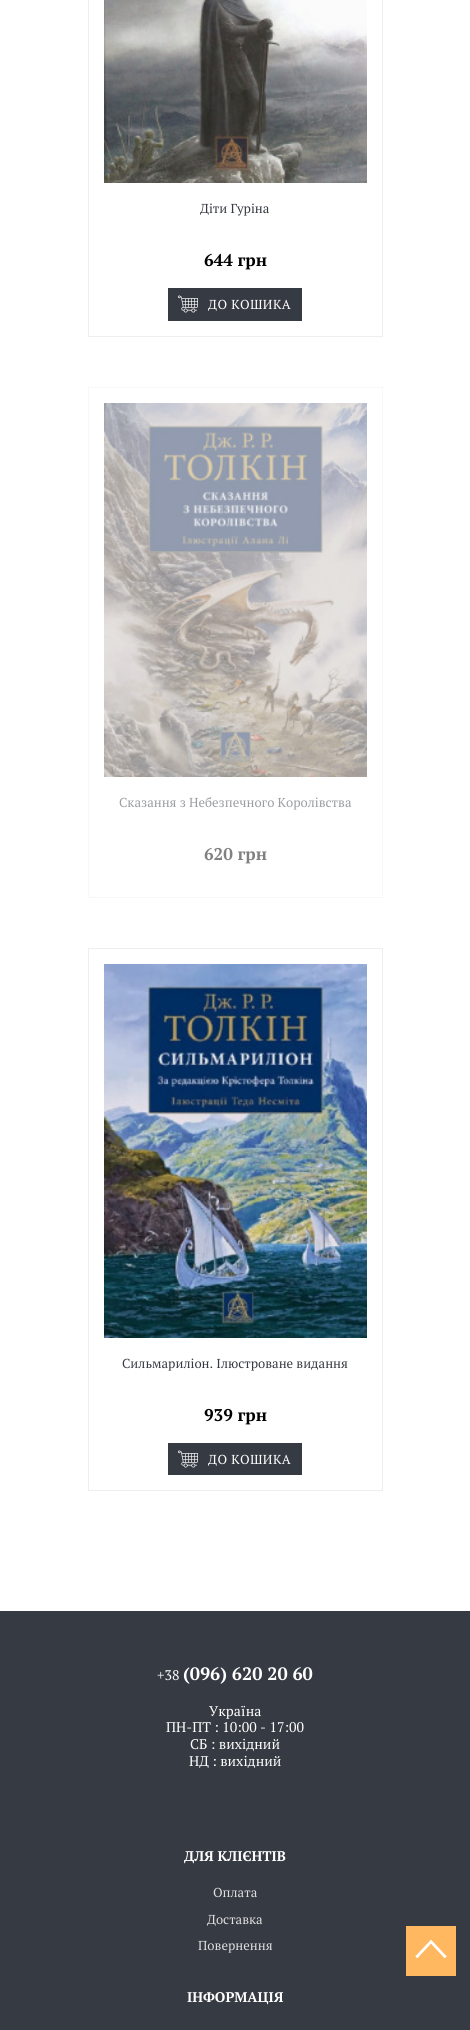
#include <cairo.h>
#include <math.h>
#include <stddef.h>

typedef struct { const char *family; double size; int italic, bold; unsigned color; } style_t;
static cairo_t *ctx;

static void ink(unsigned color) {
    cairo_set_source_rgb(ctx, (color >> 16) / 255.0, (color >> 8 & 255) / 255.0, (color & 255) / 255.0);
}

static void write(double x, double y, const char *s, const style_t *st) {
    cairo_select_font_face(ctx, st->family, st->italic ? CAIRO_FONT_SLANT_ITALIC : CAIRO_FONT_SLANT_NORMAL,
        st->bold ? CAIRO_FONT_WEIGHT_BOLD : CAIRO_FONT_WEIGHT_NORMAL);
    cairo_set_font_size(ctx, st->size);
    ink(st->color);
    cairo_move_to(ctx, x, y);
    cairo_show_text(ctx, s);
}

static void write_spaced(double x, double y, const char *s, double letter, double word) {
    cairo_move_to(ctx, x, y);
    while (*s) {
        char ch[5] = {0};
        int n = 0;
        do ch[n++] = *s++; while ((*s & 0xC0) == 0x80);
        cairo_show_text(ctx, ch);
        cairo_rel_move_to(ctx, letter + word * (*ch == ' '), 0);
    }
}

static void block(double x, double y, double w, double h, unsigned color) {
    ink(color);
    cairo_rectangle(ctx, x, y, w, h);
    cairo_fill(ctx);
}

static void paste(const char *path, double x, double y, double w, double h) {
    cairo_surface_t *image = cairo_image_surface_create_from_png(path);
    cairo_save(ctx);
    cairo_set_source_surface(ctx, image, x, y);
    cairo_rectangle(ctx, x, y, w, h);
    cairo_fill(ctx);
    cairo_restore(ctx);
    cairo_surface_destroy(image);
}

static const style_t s1 = {"PT Serif", 13, 0, 0, 0x363a42};
static const style_t s2 = {"PT Serif", 17, 0, 1, 0x000000};
static const style_t s3 = {"PT Serif", 13, 0, 0, 0x9b9da1};
static const style_t s4 = {"PT Serif", 17, 0, 1, 0x808080};
static const style_t s5 = {"PT Serif", 14, 0, 0, 0xffffff};
static const style_t s6 = {"PT Serif", 18, 0, 1, 0xffffff};
static const style_t s7 = {"PT Serif", 14, 0, 1, 0xffffff};
static const style_t s8 = {"PT Serif", 13, 0, 0, 0xdfdfdf};

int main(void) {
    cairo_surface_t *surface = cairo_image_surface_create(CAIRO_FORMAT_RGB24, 470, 2030);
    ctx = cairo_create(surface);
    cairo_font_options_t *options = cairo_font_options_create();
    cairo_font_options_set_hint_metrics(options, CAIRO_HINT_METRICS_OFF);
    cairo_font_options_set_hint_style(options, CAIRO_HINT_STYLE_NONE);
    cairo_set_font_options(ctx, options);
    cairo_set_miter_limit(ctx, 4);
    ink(0xffffff);
    cairo_paint(ctx);
    cairo_rectangle(ctx, 88.5, -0.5, 294, 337);
    ink(0xeeeeee);
    cairo_set_line_width(ctx, 1);
    cairo_stroke(ctx);
    paste("pic1.png", 104, 0, 263, 183);
    write(200, 213, "Діти Гуріна", &s1);
    write(204, 266, "644 грн", &s2);
    block(168, 288, 134, 33, 0x363a42);
    paste("pic2.png", 178, 295, 20, 18);
    cairo_select_font_face(ctx, "PT Serif", CAIRO_FONT_SLANT_NORMAL, CAIRO_FONT_WEIGHT_NORMAL);
    cairo_set_font_size(ctx, 13);
    ink(0xffffff);
    write_spaced(208, 309, "ДО КОШИКА", 0.5, 0);
    cairo_rectangle(ctx, 88.5, 387.5, 294, 510);
    ink(0xf7f7f7);
    cairo_stroke(ctx);
    paste("pic3.png", 104, 403, 263, 374);
    write(119, 807, "Сказання з Небезпечного Королівства", &s3);
    write(204, 860, "620 грн", &s4);
    cairo_rectangle(ctx, 88.5, 948.5, 294, 542);
    ink(0xeeeeee);
    cairo_stroke(ctx);
    paste("pic4.png", 104, 964, 263, 374);
    write(122, 1368, "Сильмариліон. Ілюстроване видання", &s1);
    write(204, 1421, "939 грн", &s2);
    block(168, 1443, 134, 32, 0x363a42);
    paste("pic2.png", 178, 1450, 20, 18);
    cairo_select_font_face(ctx, "PT Serif", CAIRO_FONT_SLANT_NORMAL, CAIRO_FONT_WEIGHT_NORMAL);
    cairo_set_font_size(ctx, 13);
    ink(0xffffff);
    write_spaced(208, 1464, "ДО КОШИКА", 0.5, 0);
    block(0, 1611, 470, 419, 0x363a42);
    write(157, 1680, "+38", &s5);
    write(183, 1680, "(096) 620 20 60", &s6);
    write(209, 1716, "Україна", &s5);
    write(166, 1732, "ПН-ПТ : 10:00 - 17:00", &s5);
    write(190, 1749, "СБ : вихідний", &s5);
    write(189, 1766, "НД : вихідний", &s5);
    write(184, 1861, "ДЛЯ КЛІЄНТІВ", &s7);
    write(213, 1897, "Оплата", &s8);
    write(207, 1924, "Доставка", &s8);
    write(198, 1950, "Повернення", &s8);
    write(187, 2002, "ІНФОРМАЦІЯ", &s7);
    block(406, 1926, 50, 50, 0xffb85f);
    paste("pic5.png", 415, 1940, 32, 18);
    cairo_surface_write_to_png(surface, "screenshot.png");
    cairo_font_options_destroy(options);
    cairo_destroy(ctx);
    cairo_surface_destroy(surface);
    return 0;
}
